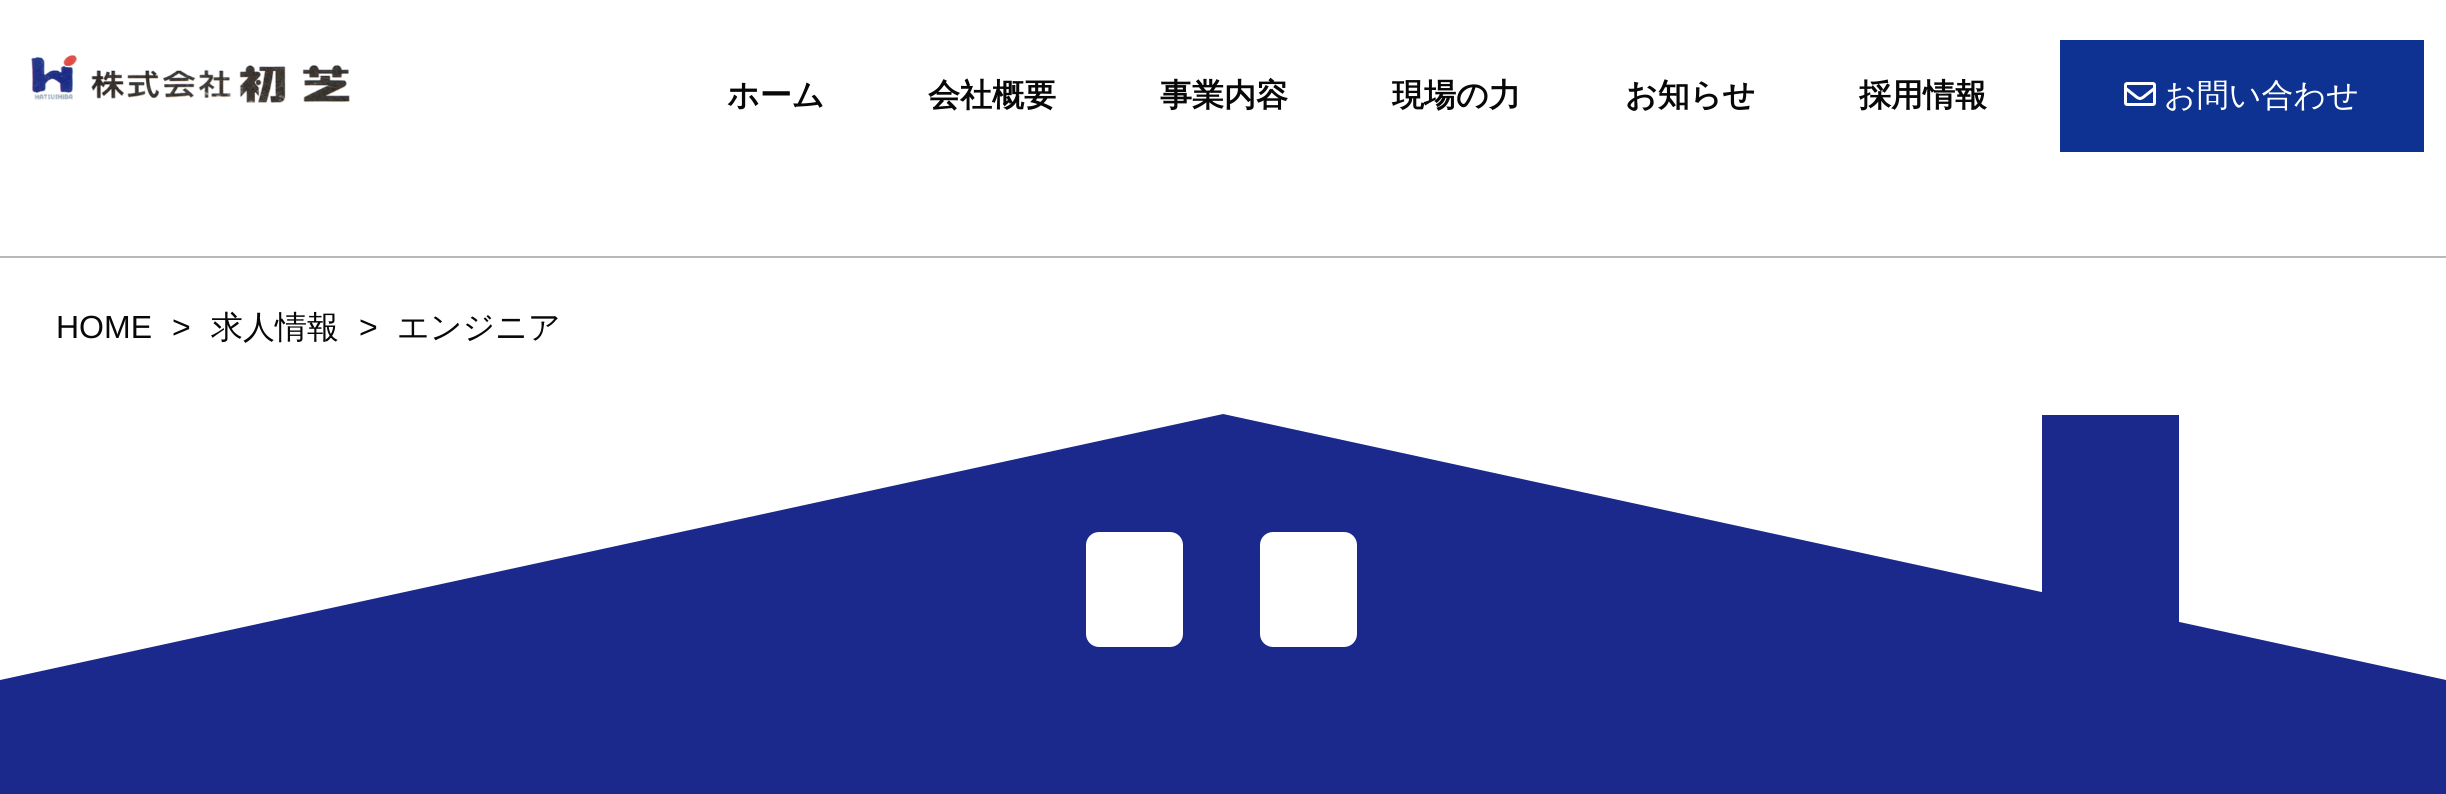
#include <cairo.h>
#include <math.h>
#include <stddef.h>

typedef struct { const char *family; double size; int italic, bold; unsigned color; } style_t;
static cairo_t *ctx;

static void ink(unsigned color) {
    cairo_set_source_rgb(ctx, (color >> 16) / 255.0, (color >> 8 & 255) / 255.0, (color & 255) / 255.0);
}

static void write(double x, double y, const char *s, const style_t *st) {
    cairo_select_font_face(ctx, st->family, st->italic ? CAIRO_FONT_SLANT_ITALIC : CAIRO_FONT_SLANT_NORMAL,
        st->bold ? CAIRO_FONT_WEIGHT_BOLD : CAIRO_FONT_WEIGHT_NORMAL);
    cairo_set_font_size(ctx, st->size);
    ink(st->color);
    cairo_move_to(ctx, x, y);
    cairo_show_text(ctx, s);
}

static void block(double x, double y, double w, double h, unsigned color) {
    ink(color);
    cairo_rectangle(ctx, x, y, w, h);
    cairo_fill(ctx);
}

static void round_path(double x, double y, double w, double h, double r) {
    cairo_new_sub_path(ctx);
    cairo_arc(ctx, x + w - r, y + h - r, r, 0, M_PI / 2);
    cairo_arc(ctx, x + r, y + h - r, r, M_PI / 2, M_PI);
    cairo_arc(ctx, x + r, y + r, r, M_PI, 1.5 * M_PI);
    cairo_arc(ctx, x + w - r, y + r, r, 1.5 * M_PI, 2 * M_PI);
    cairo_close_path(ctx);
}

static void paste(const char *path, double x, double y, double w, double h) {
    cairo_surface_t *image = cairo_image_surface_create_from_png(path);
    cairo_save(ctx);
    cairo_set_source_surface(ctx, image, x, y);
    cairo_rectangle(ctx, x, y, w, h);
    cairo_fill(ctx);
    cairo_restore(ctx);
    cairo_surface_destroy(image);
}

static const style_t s1 = {"WenQuanYi Zen Hei", 32, 0, 1, 0x090808};
static const style_t s2 = {"WenQuanYi Zen Hei Medium", 32, 0, 0, 0xffffff};
static const style_t s3 = {"Liberation Sans", 32, 0, 0, 0x090808};
static const style_t s4 = {"WenQuanYi Zen Hei Medium", 32, 0, 0, 0x090808};

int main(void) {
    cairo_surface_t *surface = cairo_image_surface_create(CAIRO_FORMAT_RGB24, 2446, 794);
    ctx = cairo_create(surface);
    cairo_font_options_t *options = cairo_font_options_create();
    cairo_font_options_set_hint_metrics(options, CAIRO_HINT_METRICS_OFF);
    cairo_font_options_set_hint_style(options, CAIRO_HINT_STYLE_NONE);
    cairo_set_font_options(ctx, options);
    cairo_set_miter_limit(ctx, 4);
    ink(0xffffff);
    cairo_paint(ctx);
    paste("pic1.png", 31, 54, 319, 49);
    write(727, 106, "ホーム", &s1);
    write(928, 106, "会社概要", &s1);
    write(1160, 106, "事業内容", &s1);
    write(1392, 106, "現場の力", &s1);
    write(1625, 106, "お知らせ", &s1);
    write(1859, 106, "採用情報", &s1);
    block(2060, 40, 364, 112, 0x0d3292);
    paste("pic2.png", 2124, 82, 32, 24);
    write(2164, 106, "お問い合わせ", &s2);
    block(0, 256, 2446, 2, 0xb9b9b9);
    write(56, 338, "HOME", &s3);
    write(172, 338, ">", &s3);
    write(211, 338, "求人情報", &s4);
    write(359, 338, ">", &s3);
    write(397, 338, "エンジニア", &s4);
    block(2042, 415, 137, 207, 0x1a298b);
    cairo_new_path(ctx);
    cairo_move_to(ctx, 0, 680);
    cairo_line_to(ctx, 1223, 414);
    cairo_line_to(ctx, 2446, 680);
    cairo_close_path(ctx);
    cairo_fill(ctx);
    ink(0xffffff);
    round_path(1086, 532, 97, 115, 13);
    cairo_fill(ctx);
    round_path(1260, 532, 97, 115, 13);
    cairo_fill(ctx);
    block(0, 680, 2446, 114, 0x1a298b);
    cairo_surface_write_to_png(surface, "screenshot.png");
    cairo_font_options_destroy(options);
    cairo_destroy(ctx);
    cairo_surface_destroy(surface);
    return 0;
}
